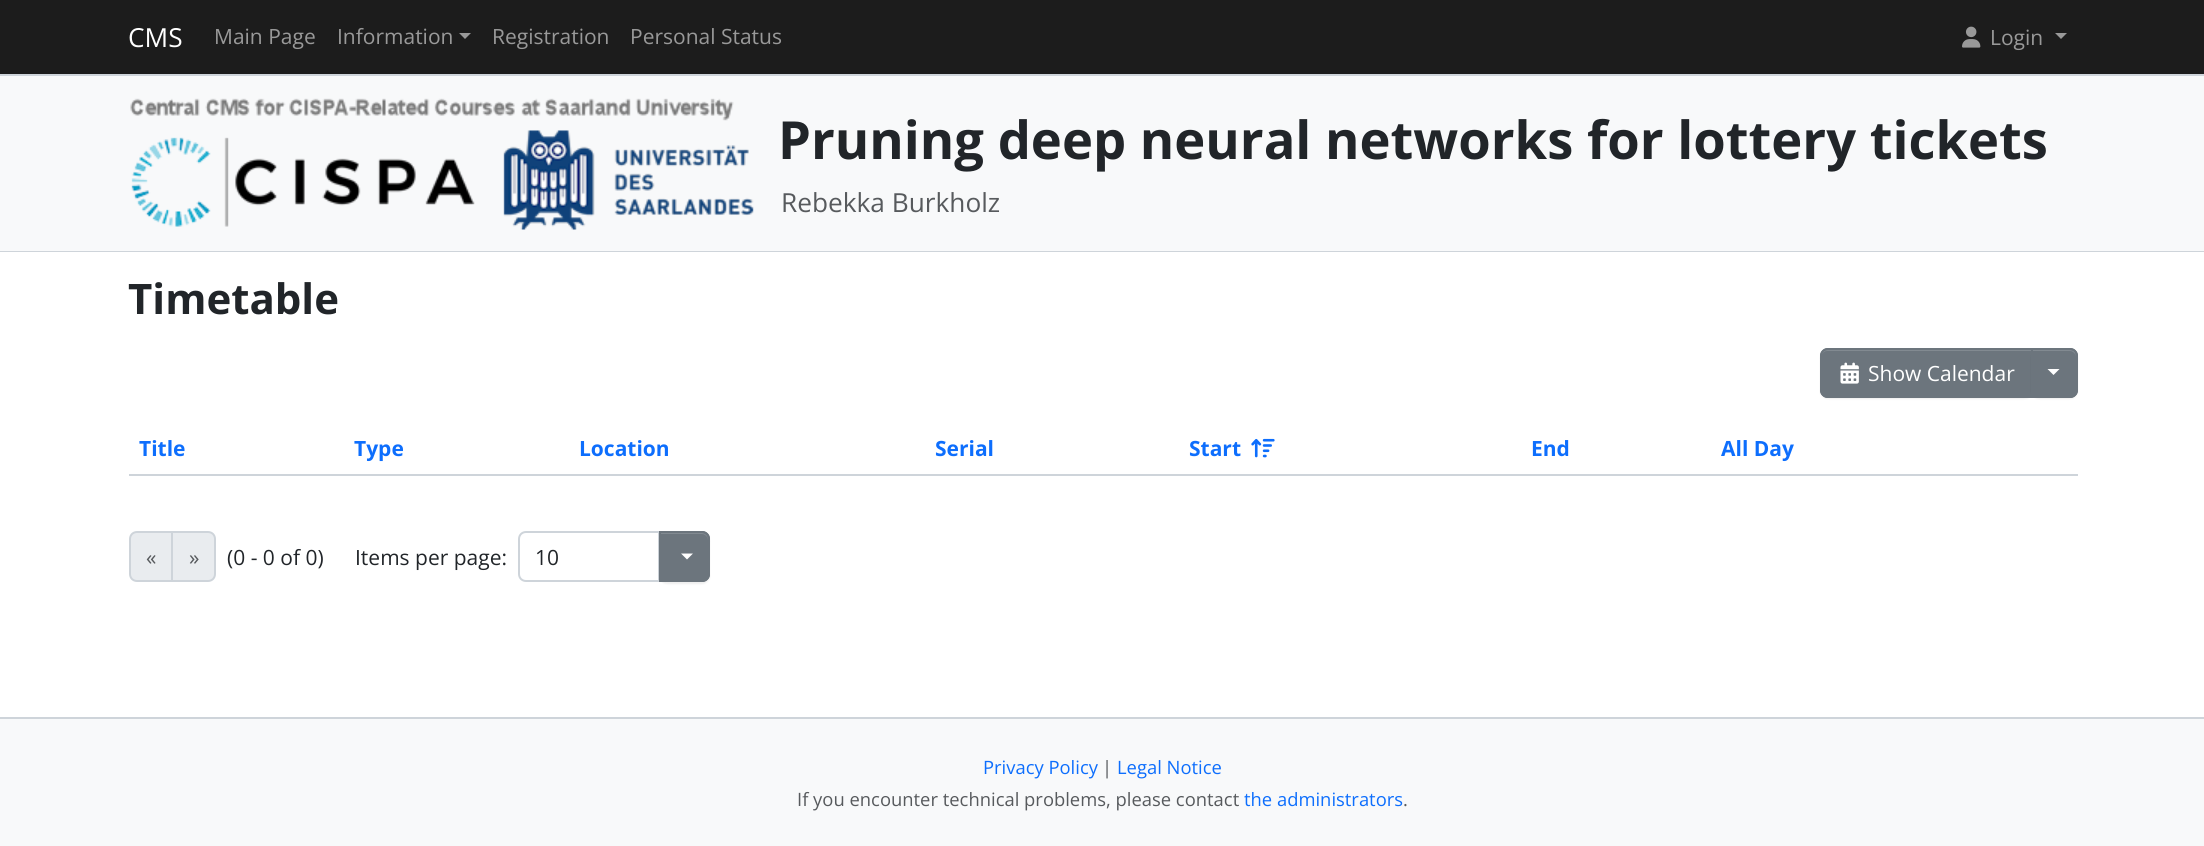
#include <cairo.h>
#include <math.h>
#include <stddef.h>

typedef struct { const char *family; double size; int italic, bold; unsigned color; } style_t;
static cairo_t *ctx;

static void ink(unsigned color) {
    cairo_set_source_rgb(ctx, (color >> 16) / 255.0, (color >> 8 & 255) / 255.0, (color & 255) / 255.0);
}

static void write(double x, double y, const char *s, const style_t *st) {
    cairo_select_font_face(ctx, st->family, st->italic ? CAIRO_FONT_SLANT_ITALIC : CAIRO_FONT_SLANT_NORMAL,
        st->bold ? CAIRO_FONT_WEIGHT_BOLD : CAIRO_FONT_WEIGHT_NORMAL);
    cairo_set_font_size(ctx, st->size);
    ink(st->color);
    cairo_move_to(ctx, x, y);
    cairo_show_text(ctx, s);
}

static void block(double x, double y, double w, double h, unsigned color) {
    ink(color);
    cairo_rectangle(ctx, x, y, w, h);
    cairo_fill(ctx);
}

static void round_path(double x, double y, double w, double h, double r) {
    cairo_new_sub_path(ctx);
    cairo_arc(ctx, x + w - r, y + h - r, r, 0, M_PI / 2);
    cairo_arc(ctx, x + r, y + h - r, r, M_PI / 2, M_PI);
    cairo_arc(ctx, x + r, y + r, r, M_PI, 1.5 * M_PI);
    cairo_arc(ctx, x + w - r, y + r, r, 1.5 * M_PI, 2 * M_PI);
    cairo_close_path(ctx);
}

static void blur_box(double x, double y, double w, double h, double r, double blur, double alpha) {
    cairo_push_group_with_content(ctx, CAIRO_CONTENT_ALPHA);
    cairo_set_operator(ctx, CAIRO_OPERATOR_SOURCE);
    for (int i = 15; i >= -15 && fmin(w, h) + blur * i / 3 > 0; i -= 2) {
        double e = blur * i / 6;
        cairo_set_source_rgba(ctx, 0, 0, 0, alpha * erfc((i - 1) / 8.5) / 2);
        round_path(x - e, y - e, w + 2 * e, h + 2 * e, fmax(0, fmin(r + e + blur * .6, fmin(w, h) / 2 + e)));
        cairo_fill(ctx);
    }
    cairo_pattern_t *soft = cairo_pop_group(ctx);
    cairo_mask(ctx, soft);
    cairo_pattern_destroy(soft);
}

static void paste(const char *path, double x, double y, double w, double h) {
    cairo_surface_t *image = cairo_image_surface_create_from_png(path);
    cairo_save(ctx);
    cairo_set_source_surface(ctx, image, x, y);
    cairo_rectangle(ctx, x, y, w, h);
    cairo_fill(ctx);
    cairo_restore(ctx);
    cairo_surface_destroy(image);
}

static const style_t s1 = {"Open Sans", 26.25, 0, 0, 0xffffff};
static const style_t s2 = {"Open Sans", 21, 0, 0, 0x999999};
static const style_t s3 = {"Open Sans", 52.5, 0, 1, 0x212529};
static const style_t s4 = {"Open Sans", 26.25, 0, 0, 0x575a5d};
static const style_t s5 = {"Open Sans", 42, 0, 1, 0x212529};
static const style_t s6 = {"Open Sans", 21, 0, 0, 0xffffff};
static const style_t s7 = {"Open Sans", 21, 0, 1, 0x0d6efd};
static const style_t s8 = {"Open Sans", 21, 0, 0, 0x575a5d};
static const style_t s9 = {"Open Sans", 21, 0, 0, 0x212529};
static const style_t s10 = {"Open Sans", 18.4, 0, 0, 0x0d6efd};
static const style_t s11 = {"Open Sans", 18.4, 0, 0, 0x575a5d};

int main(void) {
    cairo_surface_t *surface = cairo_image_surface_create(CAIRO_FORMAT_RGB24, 2204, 846);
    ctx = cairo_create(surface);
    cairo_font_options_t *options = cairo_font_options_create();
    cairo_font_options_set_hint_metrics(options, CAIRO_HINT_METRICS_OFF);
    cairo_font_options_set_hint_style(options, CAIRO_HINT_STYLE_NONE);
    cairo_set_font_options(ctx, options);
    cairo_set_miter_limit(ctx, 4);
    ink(0xf8f9fa);
    cairo_paint(ctx);
    block(0, 0, 2204, 74, 0x1c1c1c);
    block(0, 74, 2204, 2, 0xced4da);
    write(128, 47, "CMS", &s1);
    write(214, 44, "Main Page", &s2);
    write(337, 44, "Information", &s2);
    cairo_new_path(ctx);
    cairo_move_to(ctx, 459, 33);
    cairo_line_to(ctx, 471, 33);
    cairo_line_to(ctx, 465, 39);
    cairo_close_path(ctx);
    cairo_fill(ctx);
    write(492, 44, "Registration", &s2);
    write(630, 44, "Personal Status", &s2);
    paste("pic1.png", 1962, 26, 19, 22);
    write(1990, 45, "Login", &s2);
    cairo_new_path(ctx);
    cairo_move_to(ctx, 2055, 33);
    cairo_line_to(ctx, 2067, 33);
    cairo_line_to(ctx, 2061, 39);
    cairo_close_path(ctx);
    cairo_fill(ctx);
    block(0, 251, 2204, 1, 0xced4da);
    paste("pic2.png", 130, 98, 624, 132);
    write(778, 159, "Pruning deep neural networks for lottery tickets", &s3);
    write(781, 212, "Rebekka Burkholz", &s4);
    block(0, 252, 2204, 465, 0xffffff);
    write(128, 314, "Timetable", &s5);
    ink(0x000000);
    blur_box(1820, 350, 213, 49, 8, 1, 0.07);
    ink(0x6c757d);
    cairo_new_path(ctx);
    cairo_move_to(ctx, 1828, 348);
    cairo_line_to(ctx, 2033, 348);
    cairo_line_to(ctx, 2033, 398);
    cairo_line_to(ctx, 1828, 398);
    cairo_curve_to(ctx, 1823.5, 398, 1820, 394.5, 1820, 390);
    cairo_line_to(ctx, 1820, 356);
    cairo_curve_to(ctx, 1820, 351.5, 1823.5, 348, 1828, 348);
    cairo_close_path(ctx);
    cairo_fill(ctx);
    ink(0x828a91);
    cairo_new_path(ctx);
    cairo_move_to(ctx, 1827, 351);
    cairo_line_to(ctx, 2031, 351);
    cairo_line_to(ctx, 2031, 350);
    cairo_line_to(ctx, 1827, 350);
    cairo_curve_to(ctx, 1824, 350, 1821, 353, 1821, 356);
    cairo_line_to(ctx, 1821, 357);
    cairo_curve_to(ctx, 1821, 354, 1824, 351, 1827, 351);
    cairo_close_path(ctx);
    cairo_fill(ctx);
    cairo_new_path(ctx);
    cairo_move_to(ctx, 1828, 349);
    cairo_line_to(ctx, 2032, 349);
    cairo_line_to(ctx, 2032, 397);
    cairo_line_to(ctx, 1828, 397);
    cairo_curve_to(ctx, 1824, 397, 1821, 394, 1821, 390);
    cairo_line_to(ctx, 1821, 356);
    cairo_curve_to(ctx, 1821, 352, 1824, 349, 1828, 349);
    cairo_close_path(ctx);
    ink(0x6c757d);
    cairo_stroke(ctx);
    paste("pic3.png", 1840, 362, 19, 22);
    write(1868, 381, "Show Calendar", &s6);
    ink(0x000000);
    blur_box(2031, 350, 47, 49, 8, 1, 0.07);
    ink(0x6c757d);
    cairo_new_path(ctx);
    cairo_move_to(ctx, 2031, 348);
    cairo_line_to(ctx, 2070, 348);
    cairo_curve_to(ctx, 2074.5, 348, 2078, 351.5, 2078, 356);
    cairo_line_to(ctx, 2078, 390);
    cairo_curve_to(ctx, 2078, 394.5, 2074.5, 398, 2070, 398);
    cairo_line_to(ctx, 2031, 398);
    cairo_close_path(ctx);
    cairo_fill(ctx);
    ink(0x828a91);
    cairo_new_path(ctx);
    cairo_move_to(ctx, 2033, 350);
    cairo_line_to(ctx, 2033, 351);
    cairo_line_to(ctx, 2070, 351);
    cairo_curve_to(ctx, 2073, 351, 2076, 354, 2076, 357);
    cairo_curve_to(ctx, 2076, 353, 2074, 350, 2070, 350);
    cairo_close_path(ctx);
    cairo_fill(ctx);
    cairo_new_path(ctx);
    cairo_move_to(ctx, 2032, 349);
    cairo_line_to(ctx, 2070, 349);
    cairo_curve_to(ctx, 2074, 349, 2077, 352, 2077, 356);
    cairo_line_to(ctx, 2077, 390);
    cairo_curve_to(ctx, 2077, 394, 2074, 397, 2070, 397);
    cairo_line_to(ctx, 2032, 397);
    cairo_close_path(ctx);
    ink(0x6c757d);
    cairo_stroke(ctx);
    ink(0xffffff);
    cairo_new_path(ctx);
    cairo_move_to(ctx, 2047.5, 369);
    cairo_line_to(ctx, 2059.5, 369);
    cairo_line_to(ctx, 2053.5, 375);
    cairo_close_path(ctx);
    cairo_fill(ctx);
    write(139, 456, "Title", &s7);
    write(354, 456, "Type", &s7);
    write(579, 456, "Location", &s7);
    write(935, 456, "Serial", &s7);
    write(1189, 456, "Start", &s7);
    paste("pic4.png", 1251, 438, 24, 20);
    write(1531, 456, "End", &s7);
    write(1721, 456, "All Day", &s7);
    block(129, 474, 1949, 2, 0xced4da);
    ink(0xe9ecef);
    cairo_new_path(ctx);
    cairo_move_to(ctx, 137, 532);
    cairo_line_to(ctx, 172, 532);
    cairo_line_to(ctx, 172, 581);
    cairo_line_to(ctx, 137, 581);
    cairo_curve_to(ctx, 133, 581, 130, 578, 130, 574);
    cairo_line_to(ctx, 130, 539);
    cairo_curve_to(ctx, 130, 535, 133, 532, 137, 532);
    cairo_close_path(ctx);
    cairo_fill_preserve(ctx);
    ink(0xced4da);
    cairo_stroke(ctx);
    write(146, 565, "«", &s8);
    ink(0xe9ecef);
    cairo_new_path(ctx);
    cairo_move_to(ctx, 172, 532);
    cairo_line_to(ctx, 208, 532);
    cairo_curve_to(ctx, 212, 532, 215, 535, 215, 539);
    cairo_line_to(ctx, 215, 574);
    cairo_curve_to(ctx, 215, 578, 212, 581, 208, 581);
    cairo_line_to(ctx, 172, 581);
    cairo_close_path(ctx);
    cairo_fill_preserve(ctx);
    ink(0xced4da);
    cairo_stroke(ctx);
    write(189, 565, "»", &s8);
    write(227, 565, "(0 - 0 of 0)", &s9);
    write(355, 565, "Items per page:", &s9);
    cairo_new_path(ctx);
    cairo_move_to(ctx, 526, 532);
    cairo_line_to(ctx, 659, 532);
    cairo_line_to(ctx, 659, 581);
    cairo_line_to(ctx, 526, 581);
    cairo_curve_to(ctx, 522, 581, 519, 578, 519, 574);
    cairo_line_to(ctx, 519, 539);
    cairo_curve_to(ctx, 519, 535, 522, 532, 526, 532);
    cairo_close_path(ctx);
    ink(0xced4da);
    cairo_stroke(ctx);
    write(535, 565, "10", &s9);
    ink(0x000000);
    blur_box(659, 533, 51, 51, 8, 1, 0.07);
    ink(0x6c757d);
    cairo_new_path(ctx);
    cairo_move_to(ctx, 659, 531);
    cairo_line_to(ctx, 702, 531);
    cairo_curve_to(ctx, 706.5, 531, 710, 534.5, 710, 539);
    cairo_line_to(ctx, 710, 574);
    cairo_curve_to(ctx, 710, 578.5, 706.5, 582, 702, 582);
    cairo_line_to(ctx, 659, 582);
    cairo_close_path(ctx);
    cairo_fill(ctx);
    ink(0x828a91);
    cairo_new_path(ctx);
    cairo_move_to(ctx, 660, 534);
    cairo_line_to(ctx, 702, 534);
    cairo_curve_to(ctx, 705, 534, 708, 537, 708, 540);
    cairo_line_to(ctx, 708, 539);
    cairo_curve_to(ctx, 708, 536, 705, 533, 702, 533);
    cairo_line_to(ctx, 660, 533);
    cairo_close_path(ctx);
    cairo_fill(ctx);
    cairo_new_path(ctx);
    cairo_move_to(ctx, 660, 532);
    cairo_line_to(ctx, 702, 532);
    cairo_curve_to(ctx, 706, 532, 709, 535, 709, 539);
    cairo_line_to(ctx, 709, 574);
    cairo_curve_to(ctx, 709, 578, 706, 581, 702, 581);
    cairo_line_to(ctx, 660, 581);
    cairo_close_path(ctx);
    ink(0x6c757d);
    cairo_stroke(ctx);
    ink(0xffffff);
    cairo_new_path(ctx);
    cairo_move_to(ctx, 681, 553.5);
    cairo_line_to(ctx, 693, 553.5);
    cairo_line_to(ctx, 687, 559.5);
    cairo_close_path(ctx);
    cairo_fill(ctx);
    block(0, 717, 2204, 2, 0xced4da);
    write(983, 774, "Privacy Policy", &s10);
    write(1102, 774, "|", &s11);
    write(1117, 774, "Legal Notice", &s10);
    write(797, 806, "If you encounter technical problems, please contact", &s11);
    write(1244, 806, "the administrators", &s10);
    write(1403, 806, ".", &s11);
    cairo_surface_write_to_png(surface, "screenshot.png");
    cairo_font_options_destroy(options);
    cairo_destroy(ctx);
    cairo_surface_destroy(surface);
    return 0;
}
